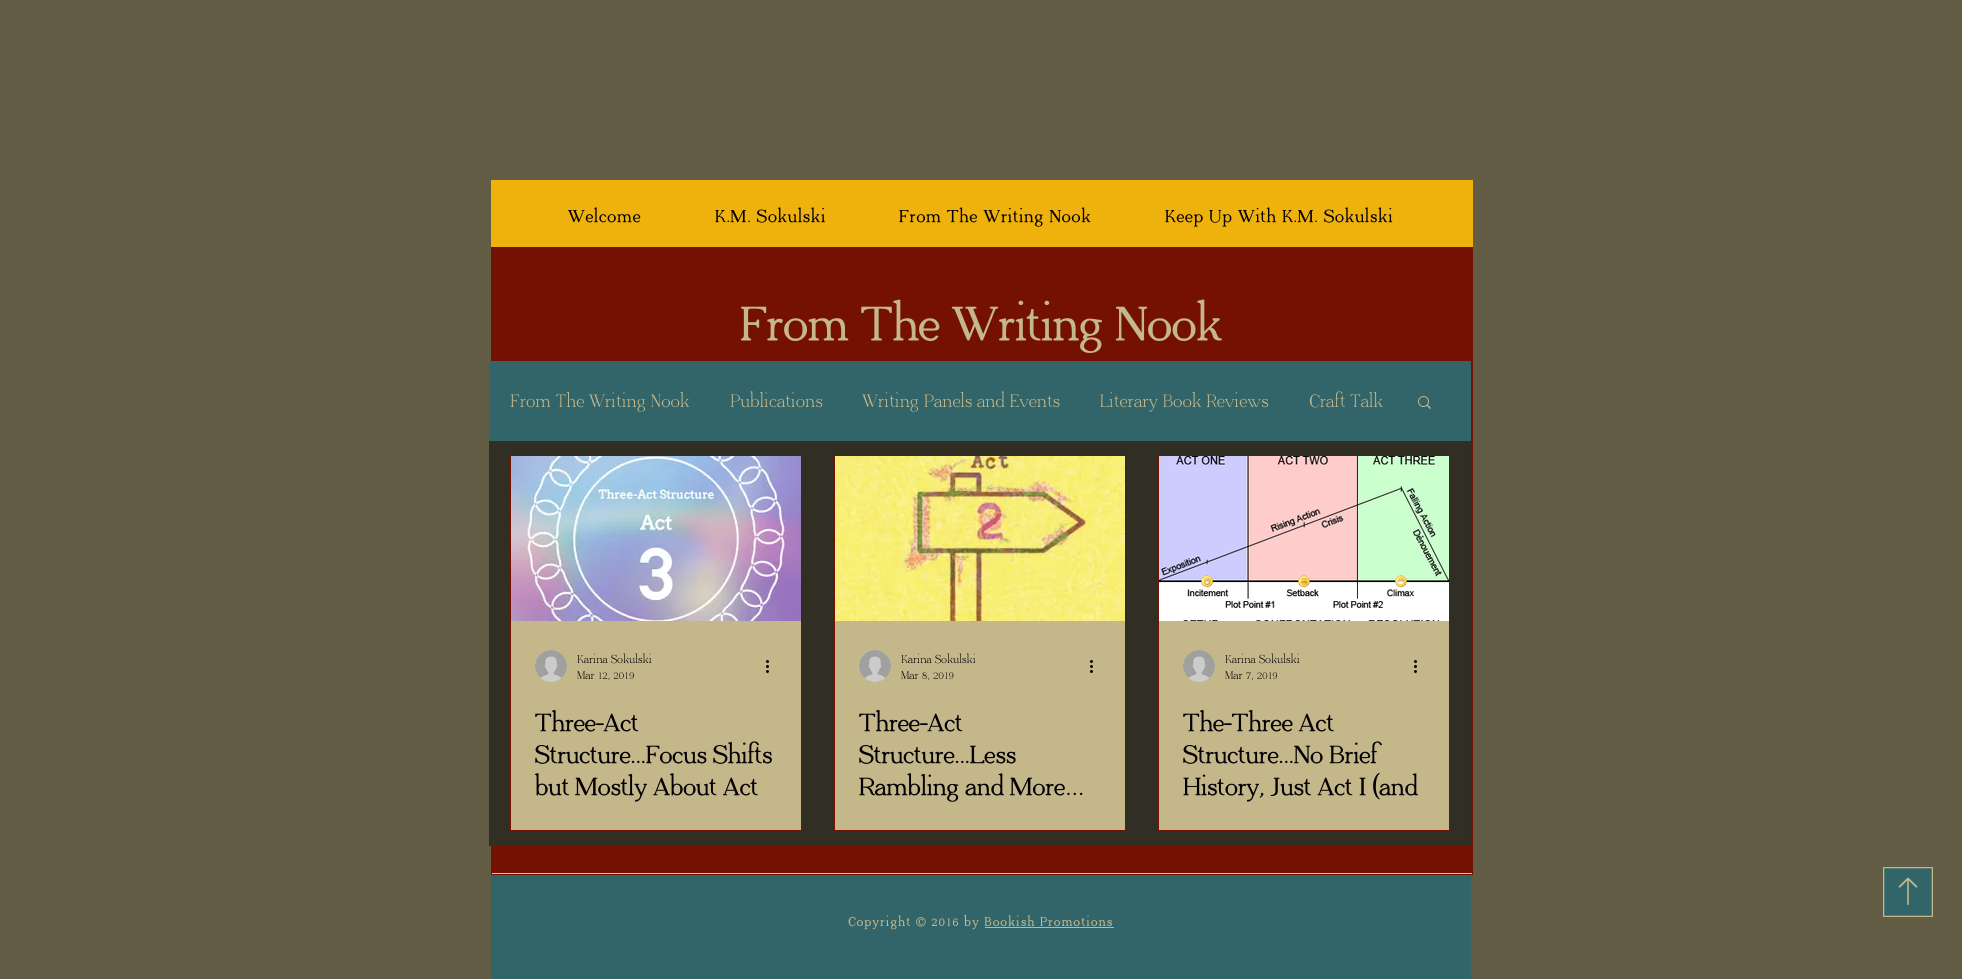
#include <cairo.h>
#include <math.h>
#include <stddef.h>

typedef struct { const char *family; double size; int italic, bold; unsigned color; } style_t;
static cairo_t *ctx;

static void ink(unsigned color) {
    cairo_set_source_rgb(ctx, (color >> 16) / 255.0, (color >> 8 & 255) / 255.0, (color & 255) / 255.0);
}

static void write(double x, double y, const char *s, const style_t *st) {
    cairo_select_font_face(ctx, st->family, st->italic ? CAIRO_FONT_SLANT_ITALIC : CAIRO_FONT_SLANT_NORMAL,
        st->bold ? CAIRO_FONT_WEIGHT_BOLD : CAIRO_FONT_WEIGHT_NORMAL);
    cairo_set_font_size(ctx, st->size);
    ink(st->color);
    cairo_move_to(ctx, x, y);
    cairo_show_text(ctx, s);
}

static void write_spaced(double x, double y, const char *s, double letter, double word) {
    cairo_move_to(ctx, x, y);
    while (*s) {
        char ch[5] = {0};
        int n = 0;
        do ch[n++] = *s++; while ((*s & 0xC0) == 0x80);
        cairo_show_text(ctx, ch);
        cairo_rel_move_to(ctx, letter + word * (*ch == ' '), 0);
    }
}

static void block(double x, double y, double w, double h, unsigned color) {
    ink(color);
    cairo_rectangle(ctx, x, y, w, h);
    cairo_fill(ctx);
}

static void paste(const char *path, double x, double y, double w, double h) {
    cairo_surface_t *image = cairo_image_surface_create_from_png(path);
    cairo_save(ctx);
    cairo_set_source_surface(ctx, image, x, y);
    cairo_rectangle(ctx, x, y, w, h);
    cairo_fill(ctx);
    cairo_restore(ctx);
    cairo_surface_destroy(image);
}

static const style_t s1 = {"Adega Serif", 50, 0, 1, 0xc4b78a};
static const style_t s2 = {"Adega Serif", 19, 0, 0, 0xc4b78a};
static const style_t s3 = {"Adega Serif", 12, 0, 0, 0x040104};
static const style_t s4 = {"Adega Serif", 26, 0, 1, 0x040104};

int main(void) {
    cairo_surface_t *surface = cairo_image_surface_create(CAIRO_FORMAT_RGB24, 1962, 979);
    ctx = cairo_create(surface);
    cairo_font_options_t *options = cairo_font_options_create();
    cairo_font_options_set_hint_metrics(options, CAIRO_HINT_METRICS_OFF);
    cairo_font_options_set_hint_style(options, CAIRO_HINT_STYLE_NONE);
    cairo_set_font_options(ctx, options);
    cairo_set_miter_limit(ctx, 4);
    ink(0x625c45);
    cairo_paint(ctx);
    block(491, 180, 982, 67, 0xefb20c);
    cairo_select_font_face(ctx, "Adega Serif", CAIRO_FONT_SLANT_NORMAL, CAIRO_FONT_WEIGHT_BOLD);
    cairo_set_font_size(ctx, 18);
    ink(0x040104);
    write_spaced(568, 222, "Welcome", 0.9, 0);
    write_spaced(715, 222, "K.M. Sokulski", 0.9, 0);
    write_spaced(899, 222, "From The Writing Nook", 0.9, 0);
    write_spaced(1165, 222, "Keep Up With K.M. Sokulski", 0.9, 0);
    block(491, 247, 982, 628, 0x751102);
    write(740, 340, "From The Writing Nook", &s1);
    block(489, 441, 982, 405, 0x312e23);
    block(489, 361, 982, 80, 0x326569);
    write(510, 407, "From The Writing Nook", &s2);
    write(730, 407, "Publications", &s2);
    write(862, 407, "Writing Panels and Events", &s2);
    write(1100, 407, "Literary Book Reviews", &s2);
    write(1309, 407, "Craft Talk", &s2);
    paste("pic1.png", 1418, 396, 13, 13);
    block(511, 621, 290, 209, 0xc4b78a);
    cairo_rectangle(ctx, 510.5, 455.5, 291, 375);
    ink(0x751102);
    cairo_set_line_width(ctx, 1);
    cairo_stroke(ctx);
    paste("pic2.png", 511, 456, 290, 165);
    paste("pic3.png", 535, 650, 32, 32);
    write(577, 663, "Karina Sokulski", &s3);
    write(577, 679, "Mar 12, 2019", &s3);
    paste("pic4.png", 766, 660, 3, 13);
    write(535, 731, "Three-Act", &s4);
    write(535, 763, "Structure...Focus Shifts", &s4);
    write(535, 795, "but Mostly About Act", &s4);
    block(835, 621, 290, 209, 0xc4b78a);
    cairo_rectangle(ctx, 834.5, 455.5, 291, 375);
    ink(0x751102);
    cairo_stroke(ctx);
    paste("pic5.png", 835, 456, 290, 165);
    paste("pic3.png", 859, 650, 32, 32);
    write(901, 663, "Karina Sokulski", &s3);
    write(901, 679, "Mar 8, 2019", &s3);
    paste("pic4.png", 1090, 660, 3, 13);
    write(859, 731, "Three-Act", &s4);
    write(859, 763, "Structure...Less", &s4);
    write(859, 795, "Rambling and More…", &s4);
    block(1159, 621, 290, 209, 0xc4b78a);
    cairo_rectangle(ctx, 1158.5, 455.5, 291, 375);
    ink(0x751102);
    cairo_stroke(ctx);
    paste("pic6.png", 1159, 456, 290, 165);
    paste("pic3.png", 1183, 650, 32, 32);
    write(1225, 663, "Karina Sokulski", &s3);
    write(1225, 679, "Mar 7, 2019", &s3);
    paste("pic4.png", 1414, 660, 3, 13);
    write(1183, 731, "The-Three Act", &s4);
    write(1183, 763, "Structure...No Brief", &s4);
    write(1183, 795, "History, Just Act I (and", &s4);
    paste("pic7.png", 1883, 867, 50, 50);
    block(492, 873, 980, 1, 0xddc4c0);
    block(491, 875, 980, 104, 0x326569);
    cairo_select_font_face(ctx, "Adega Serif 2", CAIRO_FONT_SLANT_NORMAL, CAIRO_FONT_WEIGHT_BOLD);
    cairo_set_font_size(ctx, 13);
    ink(0xc4b78a);
    write_spaced(848, 926, "Copyright © 2016 by Bookish Promotions", 1.3, 0);
    block(985, 927, 129, 1, 0xc4b78a);
    cairo_surface_write_to_png(surface, "screenshot.png");
    cairo_font_options_destroy(options);
    cairo_destroy(ctx);
    cairo_surface_destroy(surface);
    return 0;
}
